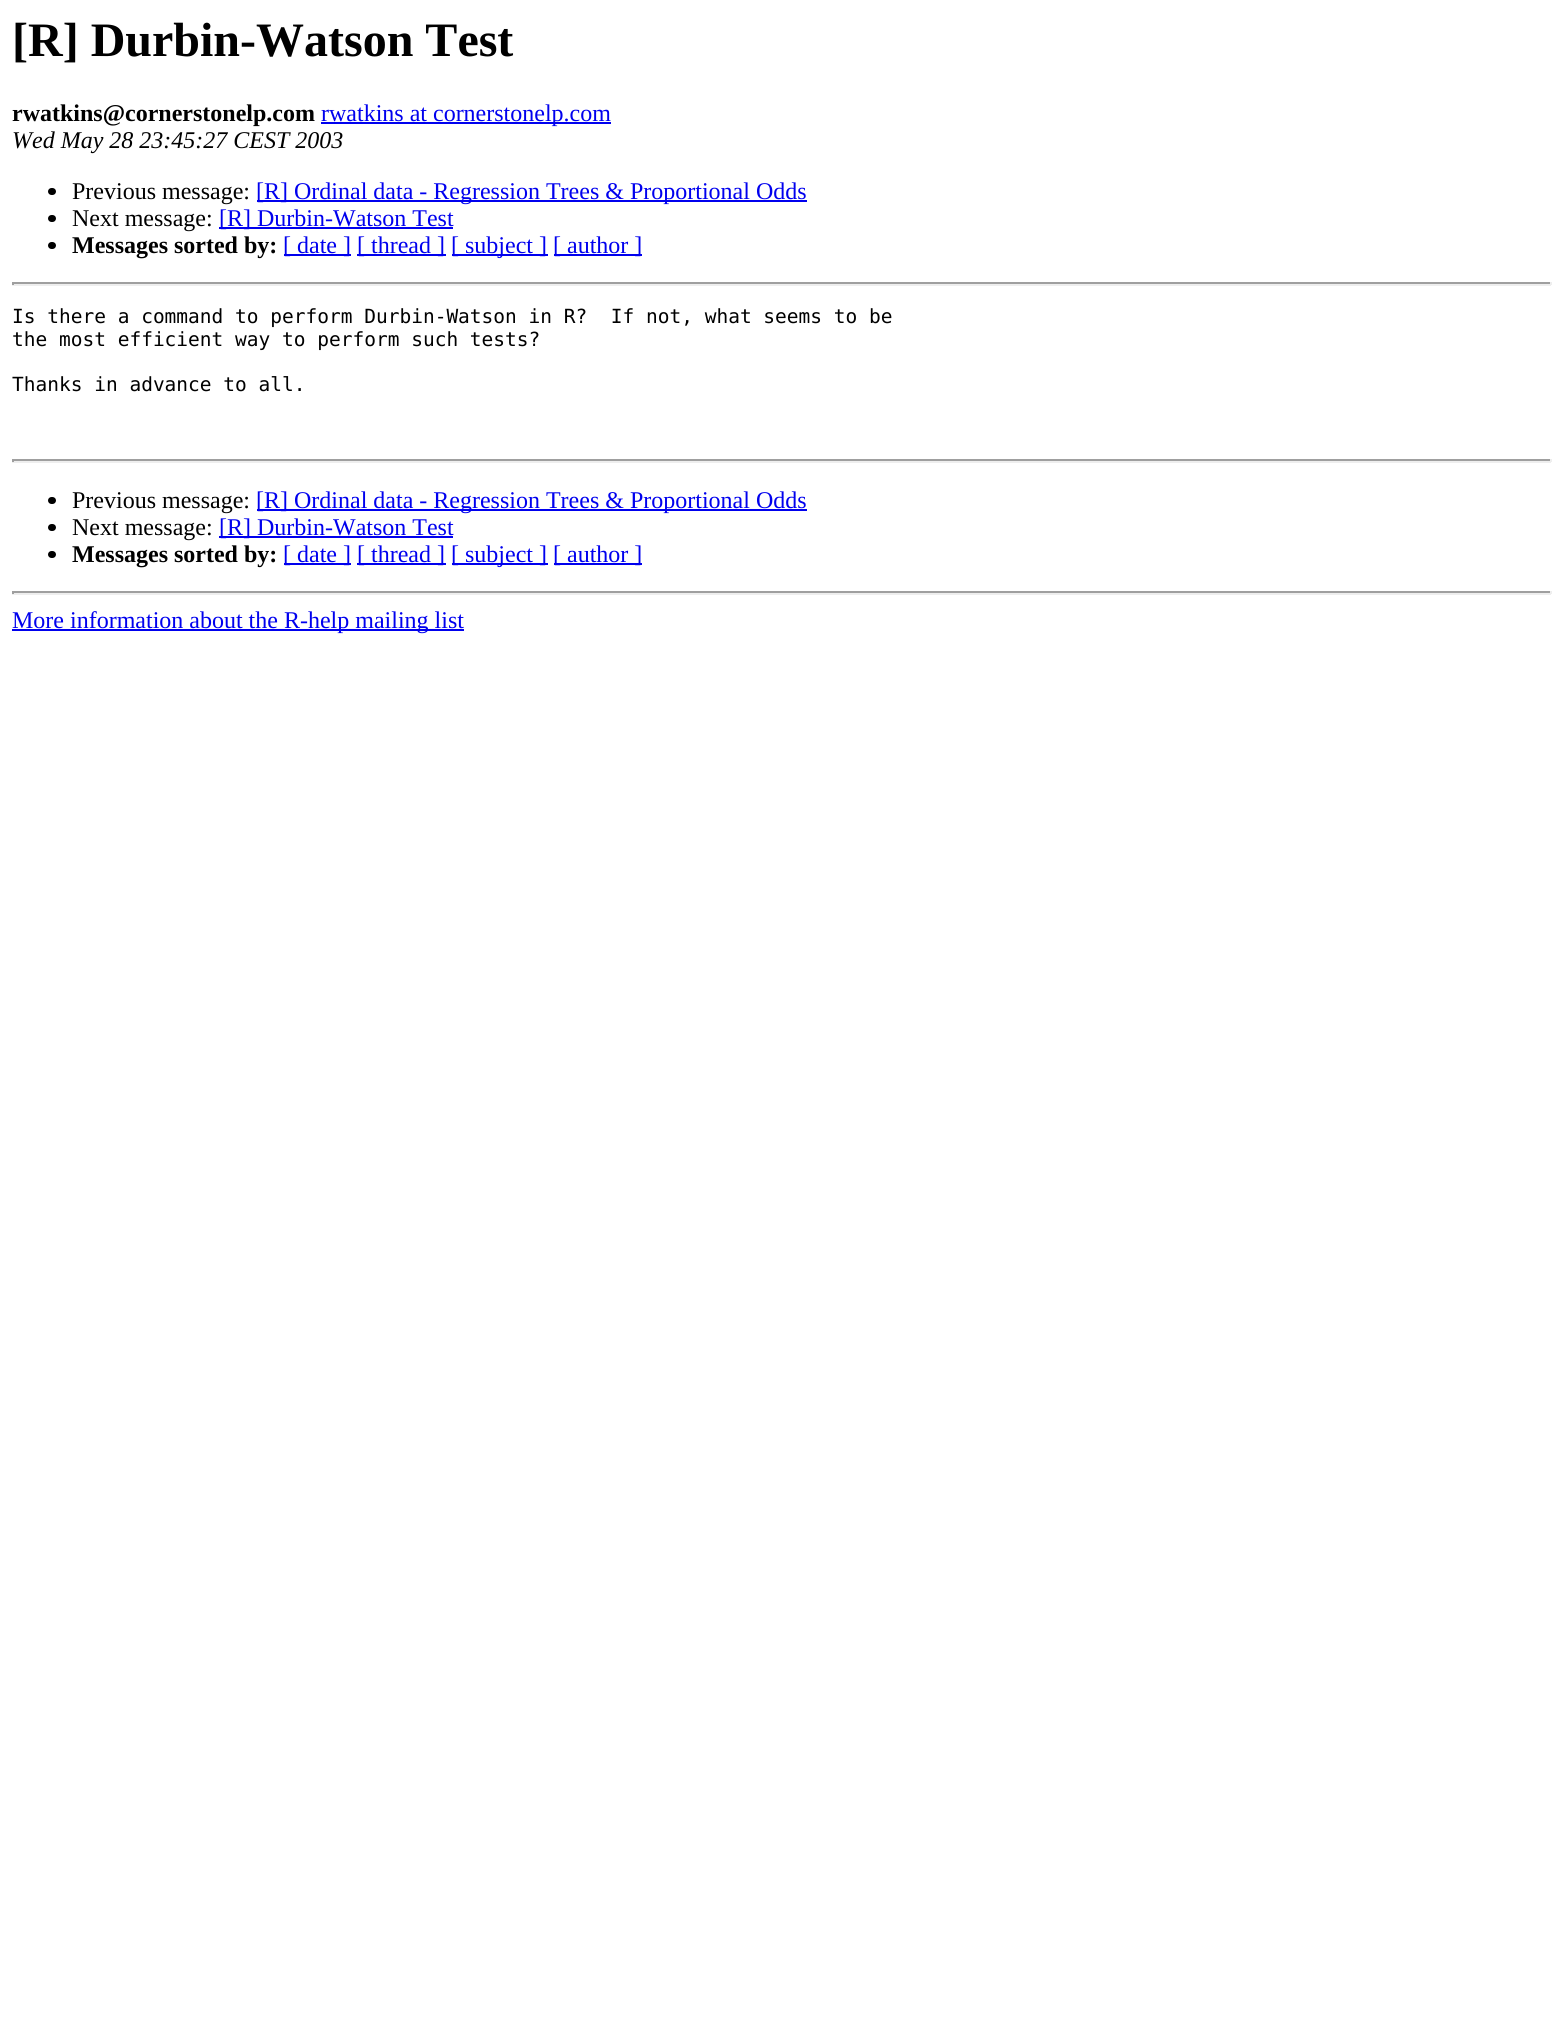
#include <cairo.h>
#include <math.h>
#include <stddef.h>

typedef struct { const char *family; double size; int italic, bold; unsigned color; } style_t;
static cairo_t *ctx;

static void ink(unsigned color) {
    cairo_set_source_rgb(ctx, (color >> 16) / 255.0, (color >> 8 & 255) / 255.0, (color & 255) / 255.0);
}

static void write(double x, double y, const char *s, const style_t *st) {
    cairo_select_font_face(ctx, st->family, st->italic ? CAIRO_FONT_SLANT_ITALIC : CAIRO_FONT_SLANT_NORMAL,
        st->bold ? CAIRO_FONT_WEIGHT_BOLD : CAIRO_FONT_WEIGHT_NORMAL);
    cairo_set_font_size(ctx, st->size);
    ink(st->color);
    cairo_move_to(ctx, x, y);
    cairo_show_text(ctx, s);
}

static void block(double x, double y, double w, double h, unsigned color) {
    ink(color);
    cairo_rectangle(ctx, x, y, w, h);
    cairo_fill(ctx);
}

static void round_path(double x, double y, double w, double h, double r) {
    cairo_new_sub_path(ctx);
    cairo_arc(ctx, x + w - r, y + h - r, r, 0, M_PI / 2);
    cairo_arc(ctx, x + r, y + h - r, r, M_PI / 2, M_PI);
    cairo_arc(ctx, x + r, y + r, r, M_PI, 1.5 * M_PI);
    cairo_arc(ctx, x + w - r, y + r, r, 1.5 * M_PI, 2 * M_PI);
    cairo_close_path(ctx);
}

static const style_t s1 = {"Liberation Serif", 48, 0, 1, 0x000000};
static const style_t s2 = {"Liberation Serif", 24, 0, 1, 0x000000};
static const style_t s3 = {"Liberation Serif", 24, 0, 0, 0x0000ee};
static const style_t s4 = {"Liberation Serif", 24, 1, 0, 0x000000};
static const style_t s5 = {"Liberation Serif", 24, 0, 0, 0x000000};
static const style_t s6 = {"DejaVu Sans Mono", 19.5, 0, 0, 0x000000};

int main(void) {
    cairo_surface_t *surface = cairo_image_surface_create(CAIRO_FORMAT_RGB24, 1563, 2020);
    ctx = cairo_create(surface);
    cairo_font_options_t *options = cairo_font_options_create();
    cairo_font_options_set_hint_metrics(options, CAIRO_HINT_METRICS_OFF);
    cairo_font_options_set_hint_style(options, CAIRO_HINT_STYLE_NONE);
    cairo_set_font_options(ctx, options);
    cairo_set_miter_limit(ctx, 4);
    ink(0xffffff);
    cairo_paint(ctx);
    write(12, 56, "[R] Durbin-Watson Test", &s1);
    write(12, 121, "rwatkins@cornerstonelp.com", &s2);
    block(321, 122, 290, 2, 0x0000ee);
    write(321, 121, "rwatkins at cornerstonelp.com", &s3);
    write(12, 148, "Wed May 28 23:45:27 CEST 2003", &s4);
    round_path(48, 188, 8, 7, 3.5);
    cairo_fill(ctx);
    write(72, 199, "Previous message:", &s5);
    block(257, 200, 550, 2, 0x0000ee);
    write(256, 199, "[R] Ordinal data - Regression Trees & Proportional Odds", &s3);
    ink(0x000000);
    round_path(48, 215, 8, 7, 3.5);
    cairo_fill(ctx);
    write(72, 226, "Next message:", &s5);
    block(219, 227, 234, 2, 0x0000ee);
    write(219, 226, "[R] Durbin-Watson Test", &s3);
    ink(0x000000);
    round_path(48, 242, 8, 7, 3.5);
    cairo_fill(ctx);
    write(72, 253, "Messages sorted by:", &s2);
    block(284, 254, 67, 2, 0x0000ee);
    write(283, 253, "[ date ]", &s3);
    block(357, 254, 89, 2, 0x0000ee);
    write(357, 253, "[ thread ]", &s3);
    block(452, 254, 96, 2, 0x0000ee);
    write(451, 253, "[ subject ]", &s3);
    block(554, 254, 88, 2, 0x0000ee);
    write(553, 253, "[ author ]", &s3);
    block(12, 282, 1539, 2, 0x9f9f9f);
    block(1550, 282, 2, 3, 0xeeeeee);
    block(12, 284, 1539, 2, 0xeeeeee);
    block(12, 282, 2, 3, 0x9f9f9f);
    write(12, 323, "Is there a command to perform Durbin-Watson in R?  If not, what seems to be", &s6);
    write(12, 346, "the most efficient way to perform such tests?", &s6);
    write(12, 391, "Thanks in advance to all.", &s6);
    block(12, 459, 1539, 2, 0x9f9f9f);
    block(1550, 459, 2, 3, 0xeeeeee);
    block(12, 461, 1539, 2, 0xeeeeee);
    block(12, 459, 2, 3, 0x9f9f9f);
    ink(0x000000);
    round_path(48, 497, 8, 7, 3.5);
    cairo_fill(ctx);
    write(72, 508, "Previous message:", &s5);
    block(257, 509, 550, 2, 0x0000ee);
    write(256, 508, "[R] Ordinal data - Regression Trees & Proportional Odds", &s3);
    ink(0x000000);
    round_path(48, 524, 8, 7, 3.5);
    cairo_fill(ctx);
    write(72, 535, "Next message:", &s5);
    block(219, 536, 234, 2, 0x0000ee);
    write(219, 535, "[R] Durbin-Watson Test", &s3);
    ink(0x000000);
    round_path(48, 551, 8, 7, 3.5);
    cairo_fill(ctx);
    write(72, 562, "Messages sorted by:", &s2);
    block(284, 563, 67, 2, 0x0000ee);
    write(283, 562, "[ date ]", &s3);
    block(357, 563, 89, 2, 0x0000ee);
    write(357, 562, "[ thread ]", &s3);
    block(452, 563, 96, 2, 0x0000ee);
    write(451, 562, "[ subject ]", &s3);
    block(554, 563, 88, 2, 0x0000ee);
    write(553, 562, "[ author ]", &s3);
    block(12, 591, 1539, 2, 0x9f9f9f);
    block(1550, 591, 2, 3, 0xeeeeee);
    block(12, 593, 1539, 2, 0xeeeeee);
    block(12, 591, 2, 3, 0x9f9f9f);
    block(12, 629, 452, 2, 0x0000ee);
    write(12, 628, "More information about the R-help mailing list", &s3);
    cairo_surface_write_to_png(surface, "screenshot.png");
    cairo_font_options_destroy(options);
    cairo_destroy(ctx);
    cairo_surface_destroy(surface);
    return 0;
}
